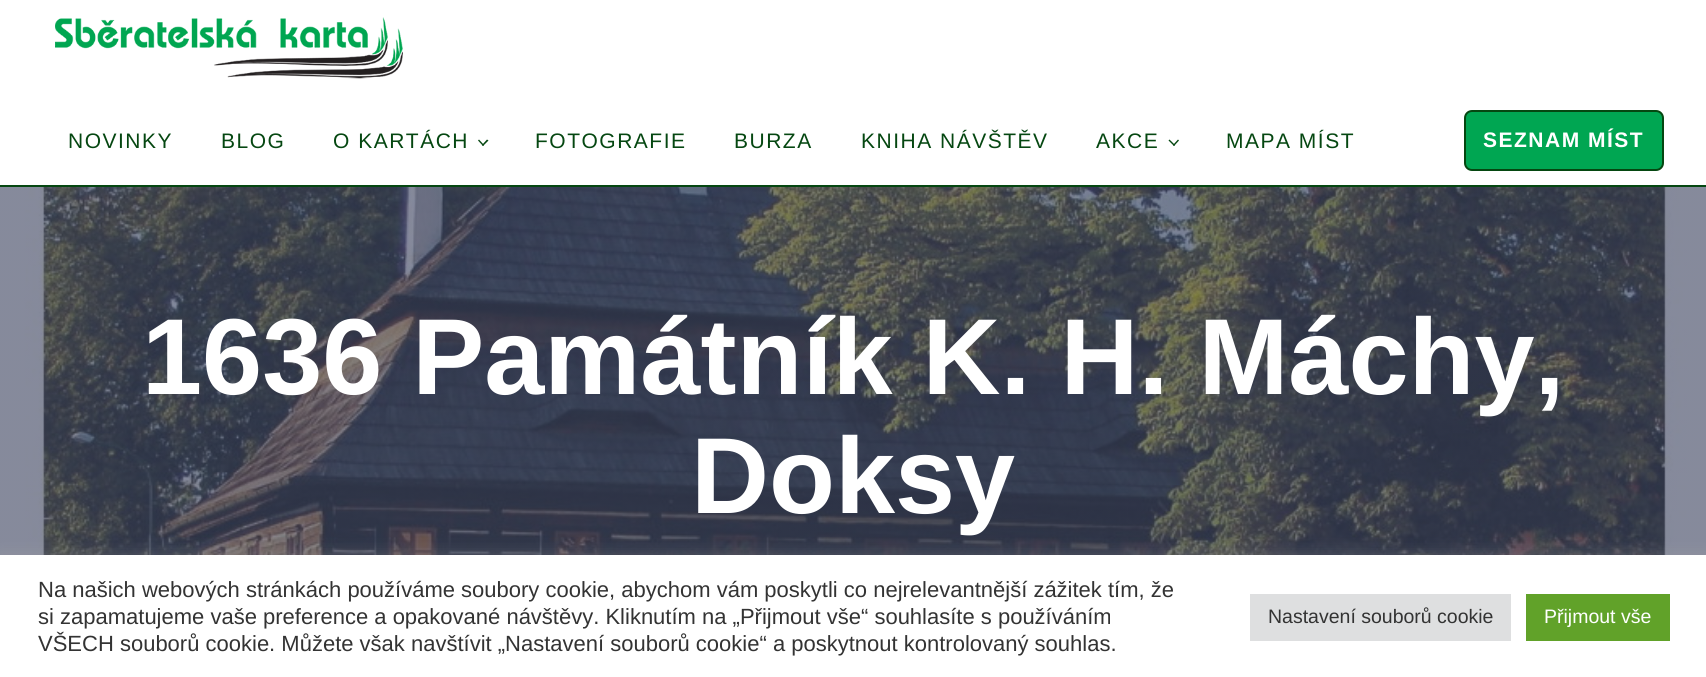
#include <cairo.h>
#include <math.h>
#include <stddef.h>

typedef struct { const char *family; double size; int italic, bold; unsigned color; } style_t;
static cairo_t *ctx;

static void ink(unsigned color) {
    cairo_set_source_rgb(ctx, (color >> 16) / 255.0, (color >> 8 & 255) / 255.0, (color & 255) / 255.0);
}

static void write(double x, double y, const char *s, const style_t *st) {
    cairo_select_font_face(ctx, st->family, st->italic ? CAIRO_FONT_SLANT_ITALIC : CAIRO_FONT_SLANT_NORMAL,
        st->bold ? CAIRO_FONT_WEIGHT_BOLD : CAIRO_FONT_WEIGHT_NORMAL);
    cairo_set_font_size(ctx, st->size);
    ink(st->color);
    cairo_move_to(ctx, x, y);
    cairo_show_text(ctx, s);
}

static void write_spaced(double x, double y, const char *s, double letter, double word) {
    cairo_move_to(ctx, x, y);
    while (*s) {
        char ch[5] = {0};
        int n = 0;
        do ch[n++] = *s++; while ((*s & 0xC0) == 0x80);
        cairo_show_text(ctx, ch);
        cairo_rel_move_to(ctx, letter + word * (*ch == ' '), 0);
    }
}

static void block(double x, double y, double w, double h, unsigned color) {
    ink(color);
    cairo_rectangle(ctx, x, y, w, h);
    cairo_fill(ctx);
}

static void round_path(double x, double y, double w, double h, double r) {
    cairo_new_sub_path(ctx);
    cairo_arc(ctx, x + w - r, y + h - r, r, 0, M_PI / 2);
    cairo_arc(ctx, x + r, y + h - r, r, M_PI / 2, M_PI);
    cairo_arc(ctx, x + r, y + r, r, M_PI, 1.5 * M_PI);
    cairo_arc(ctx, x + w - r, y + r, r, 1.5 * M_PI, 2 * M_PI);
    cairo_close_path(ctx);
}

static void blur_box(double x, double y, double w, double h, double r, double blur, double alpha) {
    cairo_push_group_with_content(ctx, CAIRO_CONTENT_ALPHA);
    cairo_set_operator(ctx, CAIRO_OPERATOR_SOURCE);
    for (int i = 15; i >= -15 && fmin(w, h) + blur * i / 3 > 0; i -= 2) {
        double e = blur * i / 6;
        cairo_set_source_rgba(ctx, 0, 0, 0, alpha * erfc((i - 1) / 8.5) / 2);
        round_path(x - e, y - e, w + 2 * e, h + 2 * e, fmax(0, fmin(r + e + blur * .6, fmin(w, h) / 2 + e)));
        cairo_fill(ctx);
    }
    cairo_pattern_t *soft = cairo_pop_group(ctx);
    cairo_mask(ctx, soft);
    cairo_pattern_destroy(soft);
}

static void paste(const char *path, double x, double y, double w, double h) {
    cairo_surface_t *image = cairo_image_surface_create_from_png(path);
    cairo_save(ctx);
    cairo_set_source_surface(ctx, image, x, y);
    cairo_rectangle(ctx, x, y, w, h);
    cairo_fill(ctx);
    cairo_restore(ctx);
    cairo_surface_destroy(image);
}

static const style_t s1 = {"Liberation Sans", 108, 0, 1, 0xffffff};
static const style_t s2 = {"Liberation Sans", 22, 0, 0, 0x333333};
static const style_t s3 = {"Liberation Sans", 19.5, 0, 0, 0x333333};
static const style_t s4 = {"Liberation Sans", 19.5, 0, 0, 0xffffff};

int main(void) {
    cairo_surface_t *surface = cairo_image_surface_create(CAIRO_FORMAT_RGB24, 1706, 677);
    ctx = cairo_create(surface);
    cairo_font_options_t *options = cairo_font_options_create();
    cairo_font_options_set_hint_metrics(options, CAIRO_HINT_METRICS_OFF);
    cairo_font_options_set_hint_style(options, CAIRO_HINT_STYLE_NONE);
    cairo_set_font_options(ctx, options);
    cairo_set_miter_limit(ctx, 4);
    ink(0xffffff);
    cairo_paint(ctx);
    paste("pic1.png", 55, 17, 348, 62);
    block(0, 185, 1706, 2, 0x054711);
    cairo_select_font_face(ctx, "Liberation Sans", CAIRO_FONT_SLANT_NORMAL, CAIRO_FONT_WEIGHT_NORMAL);
    cairo_set_font_size(ctx, 21);
    write_spaced(68, 148, "NOVINKY", 1.5, 0);
    write_spaced(221, 148, "BLOG", 1.5, 0);
    write_spaced(333, 148, "O KARTÁCH", 1.5, 0);
    cairo_new_path(ctx);
    cairo_move_to(ctx, 488.5, 140.5);
    cairo_line_to(ctx, 483, 146);
    cairo_line_to(ctx, 482, 145);
    cairo_line_to(ctx, 487, 139.5);
    cairo_close_path(ctx);
    cairo_fill(ctx);
    cairo_new_path(ctx);
    cairo_move_to(ctx, 484, 145);
    cairo_line_to(ctx, 483, 146);
    cairo_line_to(ctx, 478, 140.5);
    cairo_line_to(ctx, 479, 139.5);
    cairo_close_path(ctx);
    cairo_fill(ctx);
    write_spaced(535, 148, "FOTOGRAFIE", 1.5, 0);
    write_spaced(734, 148, "BURZA", 1.5, 0);
    write_spaced(861, 148, "KNIHA NÁVŠTĚV", 1.5, 0);
    write_spaced(1096, 148, "AKCE", 1.5, 0);
    cairo_new_path(ctx);
    cairo_move_to(ctx, 1179, 140.5);
    cairo_line_to(ctx, 1174, 146);
    cairo_line_to(ctx, 1173, 145);
    cairo_line_to(ctx, 1178, 139.5);
    cairo_close_path(ctx);
    cairo_fill(ctx);
    cairo_new_path(ctx);
    cairo_move_to(ctx, 1175, 145);
    cairo_line_to(ctx, 1174, 146);
    cairo_line_to(ctx, 1168.5, 140.5);
    cairo_line_to(ctx, 1169.5, 139.5);
    cairo_close_path(ctx);
    cairo_fill(ctx);
    write_spaced(1226, 148, "MAPA MÍST", 1.5, 0);
    ink(0x00a652);
    round_path(1465, 111, 198, 59, 7);
    cairo_fill_preserve(ctx);
    ink(0x054711);
    cairo_stroke(ctx);
    cairo_select_font_face(ctx, "Liberation Sans", CAIRO_FONT_SLANT_NORMAL, CAIRO_FONT_WEIGHT_BOLD);
    ink(0xffffff);
    write_spaced(1483, 147, "SEZNAM MÍST", 1.5, 0);
    paste("pic2.png", 0, 187, 1706, 368);
    write(142, 394, "1636 Památník K. H. Máchy,", &s1);
    write(691, 513, "Doksy", &s1);
    ink(0xacabab);
    blur_box(0, 554, 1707, 123, 0, 7.5, 0.3);
    block(0, 555, 1706, 122, 0xffffff);
    write(38, 597, "Na našich webových stránkách používáme soubory cookie, abychom vám poskytli co nejrelevantnější zážitek tím, že", &s2);
    write(38, 624, "si zapamatujeme vaše preference a opakované návštěvy. Kliknutím na „Přijmout vše“ souhlasíte s používáním", &s2);
    write(38, 651, "VŠECH souborů cookie. Můžete však navštívit „Nastavení souborů cookie“ a poskytnout kontrolovaný souhlas.", &s2);
    block(1250, 594, 261, 47, 0xdedfe0);
    write(1268, 623, "Nastavení souborů cookie", &s3);
    block(1526, 594, 144, 47, 0x61a229);
    write(1544, 623, "Přijmout vše", &s4);
    cairo_surface_write_to_png(surface, "screenshot.png");
    cairo_font_options_destroy(options);
    cairo_destroy(ctx);
    cairo_surface_destroy(surface);
    return 0;
}
